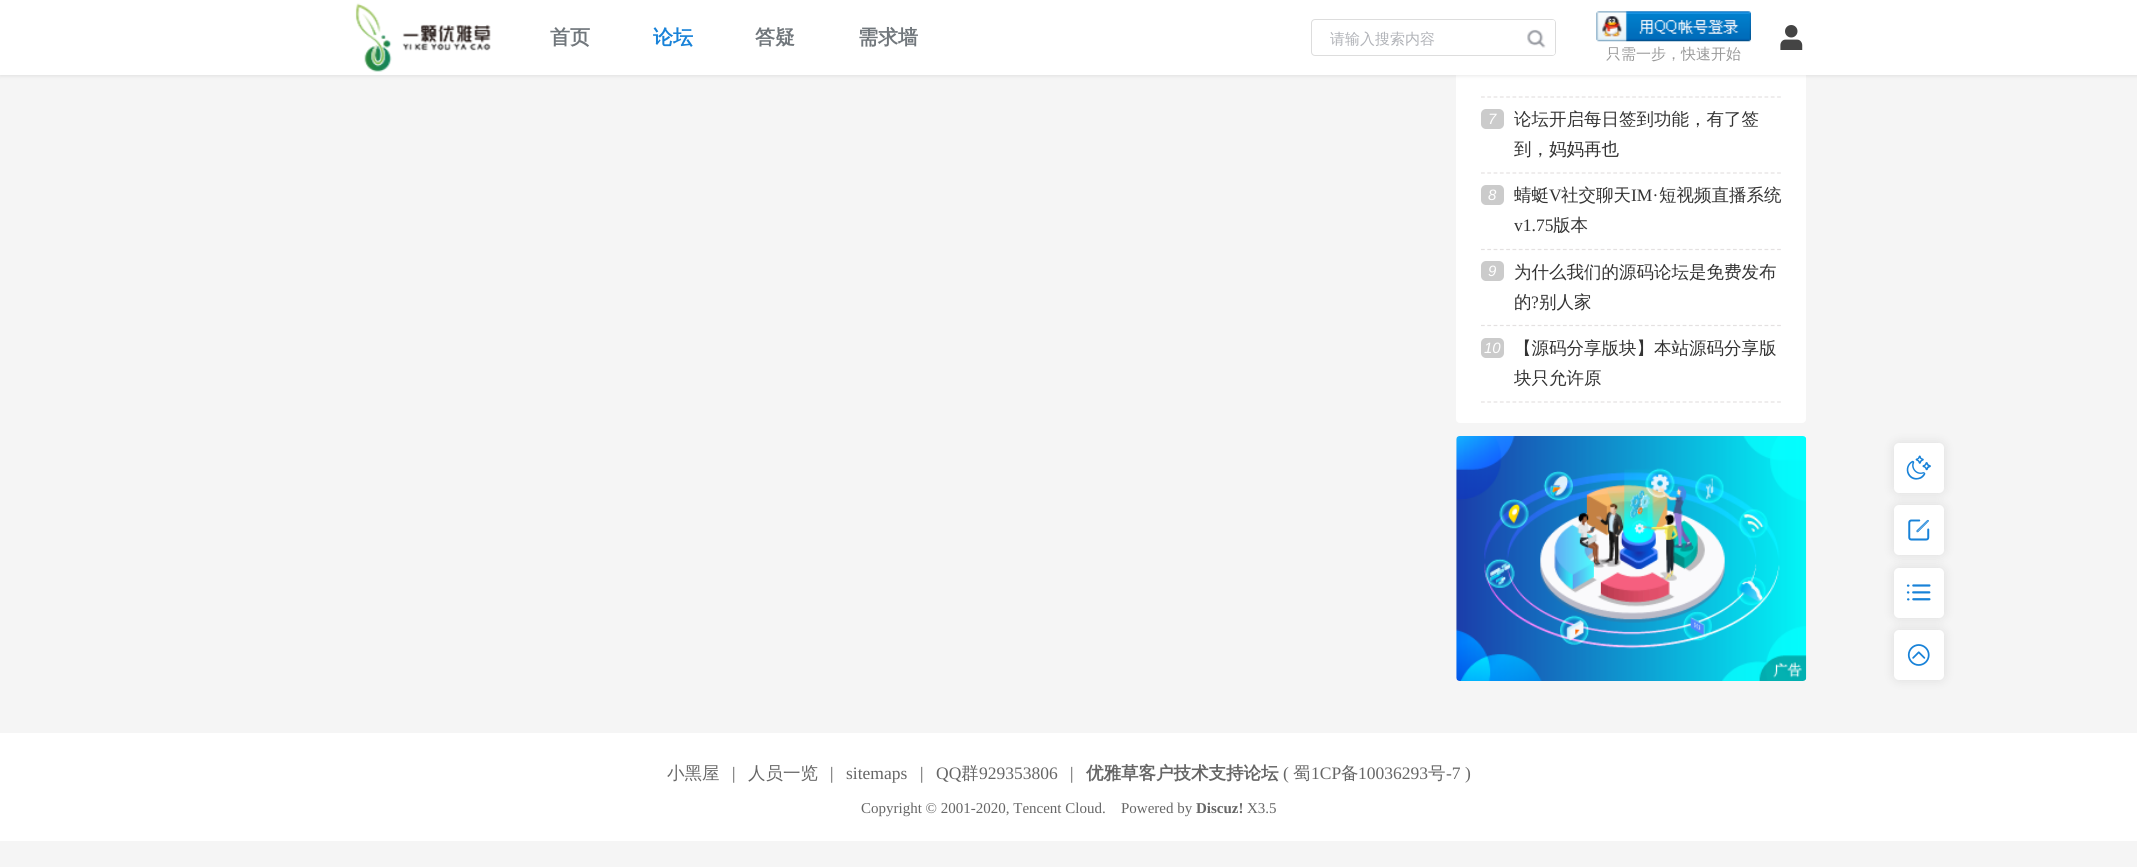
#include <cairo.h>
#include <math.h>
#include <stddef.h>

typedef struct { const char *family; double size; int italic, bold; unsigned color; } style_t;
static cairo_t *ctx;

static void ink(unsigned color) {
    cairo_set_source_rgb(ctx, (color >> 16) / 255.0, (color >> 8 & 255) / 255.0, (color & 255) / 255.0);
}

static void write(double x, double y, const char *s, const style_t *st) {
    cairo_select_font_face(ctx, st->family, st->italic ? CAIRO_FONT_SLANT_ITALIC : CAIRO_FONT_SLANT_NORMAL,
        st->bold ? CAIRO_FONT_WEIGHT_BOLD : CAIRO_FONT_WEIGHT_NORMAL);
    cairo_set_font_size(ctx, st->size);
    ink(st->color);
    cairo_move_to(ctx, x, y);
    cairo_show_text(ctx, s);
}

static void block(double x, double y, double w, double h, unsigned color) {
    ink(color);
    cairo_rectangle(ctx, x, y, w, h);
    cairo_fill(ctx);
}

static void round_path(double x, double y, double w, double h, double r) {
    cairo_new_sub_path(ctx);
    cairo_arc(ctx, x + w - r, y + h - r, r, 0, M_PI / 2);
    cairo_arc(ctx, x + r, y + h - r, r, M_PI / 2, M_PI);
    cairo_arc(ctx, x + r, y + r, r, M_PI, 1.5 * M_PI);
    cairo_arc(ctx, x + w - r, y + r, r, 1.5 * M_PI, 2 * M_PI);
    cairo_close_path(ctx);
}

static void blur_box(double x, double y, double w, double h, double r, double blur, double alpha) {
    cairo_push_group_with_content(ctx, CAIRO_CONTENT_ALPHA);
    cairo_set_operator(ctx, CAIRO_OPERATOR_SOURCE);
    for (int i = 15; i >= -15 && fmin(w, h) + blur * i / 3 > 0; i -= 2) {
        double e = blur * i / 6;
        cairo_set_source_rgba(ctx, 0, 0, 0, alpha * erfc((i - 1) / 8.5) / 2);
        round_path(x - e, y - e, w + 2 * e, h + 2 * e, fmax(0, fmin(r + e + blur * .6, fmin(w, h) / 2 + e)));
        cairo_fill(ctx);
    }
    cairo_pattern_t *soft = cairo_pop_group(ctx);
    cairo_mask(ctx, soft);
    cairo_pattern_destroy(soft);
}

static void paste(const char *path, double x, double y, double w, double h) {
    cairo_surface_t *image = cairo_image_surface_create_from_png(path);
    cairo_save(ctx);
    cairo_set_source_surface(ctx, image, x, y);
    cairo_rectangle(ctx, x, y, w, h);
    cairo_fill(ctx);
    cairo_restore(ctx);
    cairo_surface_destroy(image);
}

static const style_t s1 = {"WenQuanYi Zen Hei", 20, 0, 1, 0x71777c};
static const style_t s2 = {"WenQuanYi Zen Hei", 20, 0, 1, 0x1882d8};
static const style_t s3 = {"WenQuanYi Zen Hei Medium", 15, 0, 0, 0xb1b3b8};
static const style_t s4 = {"WenQuanYi Zen Hei Medium", 15, 0, 0, 0x999999};
static const style_t s5 = {"Liberation Sans", 15, 1, 0, 0xffffff};
static const style_t s6 = {"WenQuanYi Zen Hei Medium", 17.5, 0, 0, 0x333333};
static const style_t s7 = {"Liberation Serif", 17.5, 0, 0, 0x333333};
static const style_t s8 = {"WenQuanYi Zen Hei Medium", 17.5, 0, 0, 0x666666};
static const style_t s9 = {"Liberation Serif", 17.5, 0, 0, 0x555555};
static const style_t s10 = {"Liberation Serif", 17.5, 0, 0, 0x666666};
static const style_t s11 = {"WenQuanYi Zen Hei", 17.5, 0, 1, 0x666666};
static const style_t s12 = {"Liberation Serif", 15, 0, 0, 0x666666};
static const style_t s13 = {"Liberation Serif", 15, 0, 1, 0x666666};

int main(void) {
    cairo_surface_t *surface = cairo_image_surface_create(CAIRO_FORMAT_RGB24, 2137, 867);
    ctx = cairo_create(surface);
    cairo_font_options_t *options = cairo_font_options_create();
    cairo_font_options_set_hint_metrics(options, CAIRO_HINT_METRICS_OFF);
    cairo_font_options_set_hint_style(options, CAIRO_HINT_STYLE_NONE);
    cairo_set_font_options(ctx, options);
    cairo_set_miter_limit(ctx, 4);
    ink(0xf5f5f5);
    cairo_paint(ctx);
    ink(0xffffff);
    round_path(1456, -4, 350, 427, 4);
    cairo_fill(ctx);
    ink(0x121212);
    blur_box(0, 1, 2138, 75, 0, 2, 0.1);
    block(0, 0, 2137, 75, 0xffffff);
    paste("pic1.png", 355, 3, 136, 69);
    write(550, 44, "首页", &s1);
    write(653, 44, "论坛", &s2);
    write(755, 44, "答疑", &s1);
    write(858, 44, "需求墙", &s1);
    round_path(1311.5, 19.5, 244, 36, 3.5);
    ink(0xdddddd);
    cairo_set_line_width(ctx, 1);
    cairo_stroke(ctx);
    write(1330, 44, "请输入搜索内容", &s3);
    ink(0xffffff);
    cairo_new_path(ctx);
    cairo_move_to(ctx, 1518, 20);
    cairo_line_to(ctx, 1552.5, 20);
    cairo_curve_to(ctx, 1554, 20, 1555, 21, 1555, 22.5);
    cairo_line_to(ctx, 1555, 52.5);
    cairo_curve_to(ctx, 1555, 54, 1554, 55, 1552.5, 55);
    cairo_line_to(ctx, 1518, 55);
    cairo_close_path(ctx);
    cairo_fill(ctx);
    paste("pic2.png", 1527, 29, 19, 19);
    paste("pic3.png", 1780, 25, 23, 25);
    paste("pic4.png", 1596, 11, 155, 31);
    write(1606, 59, "只需一步，快速开始", &s4);
    cairo_new_path(ctx);
    cairo_move_to(ctx, 1481, 97);
    cairo_line_to(ctx, 1781, 97);
    ink(0xe4e1e1);
    cairo_set_line_width(ctx, 1.2);
    cairo_set_dash(ctx, (double[]){3.75, 2.55}, 2, 0);
    cairo_stroke(ctx);
    cairo_new_path(ctx);
    cairo_move_to(ctx, 1481, 173);
    cairo_line_to(ctx, 1781, 173);
    cairo_stroke(ctx);
    ink(0xcbcbcb);
    round_path(1481, 109, 23, 20, 5);
    cairo_fill(ctx);
    write(1488, 124, "7", &s5);
    write(1514, 125, "论坛开启每日签到功能，有了签", &s6);
    write(1514, 155, "到，妈妈再也", &s6);
    cairo_new_path(ctx);
    cairo_move_to(ctx, 1481, 249.5);
    cairo_line_to(ctx, 1781, 249.5);
    ink(0xe4e1e1);
    cairo_stroke(ctx);
    ink(0xcbcbcb);
    round_path(1481, 185, 23, 20, 5);
    cairo_fill(ctx);
    write(1488, 200, "8", &s5);
    write(1514, 201, "蜻蜓", &s6);
    write(1549, 201, "V", &s7);
    write(1561, 201, "社交聊天", &s6);
    write(1631, 201, "IM·", &s7);
    write(1659, 201, "短视频直播系统", &s6);
    write(1514, 231, "v1.75", &s7);
    write(1553, 231, "版本", &s6);
    cairo_new_path(ctx);
    cairo_move_to(ctx, 1481, 325.5);
    cairo_line_to(ctx, 1781, 325.5);
    ink(0xe4e1e1);
    cairo_stroke(ctx);
    ink(0xcbcbcb);
    round_path(1481, 261, 23, 20, 5);
    cairo_fill(ctx);
    write(1488, 276, "9", &s5);
    write(1514, 278, "为什么我们的源码论坛是免费发布", &s6);
    write(1514, 308, "的", &s6);
    write(1531, 308, "?", &s7);
    write(1539, 308, "别人家", &s6);
    cairo_new_path(ctx);
    cairo_move_to(ctx, 1481, 402);
    cairo_line_to(ctx, 1781, 402);
    ink(0xe4e1e1);
    cairo_stroke(ctx);
    ink(0xcbcbcb);
    round_path(1481, 338, 23, 20, 5);
    cairo_fill(ctx);
    write(1484, 353, "10", &s5);
    write(1514, 354, "【源码分享版块】本站源码分享版", &s6);
    write(1514, 384, "块只允许原", &s6);
    paste("pic5.png", 1456, 436, 351, 245);
    ink(0x000000);
    blur_box(1894, 443, 50, 50, 5, 5.5, 0.1);
    ink(0xffffff);
    round_path(1894, 443, 50, 50, 5);
    cairo_fill(ctx);
    paste("pic6.png", 1906, 455, 25, 25);
    ink(0x000000);
    blur_box(1894, 505, 50, 50, 5, 5.5, 0.1);
    ink(0xffffff);
    round_path(1894, 505, 50, 50, 5);
    cairo_fill(ctx);
    paste("pic7.png", 1908, 519, 22, 22);
    ink(0x000000);
    blur_box(1894, 568, 50, 50, 5, 5.5, 0.1);
    ink(0xffffff);
    round_path(1894, 568, 50, 50, 5);
    cairo_fill(ctx);
    paste("pic8.png", 1906, 584, 25, 17);
    ink(0x000000);
    blur_box(1894, 630, 50, 50, 5, 5.5, 0.1);
    ink(0xffffff);
    round_path(1894, 630, 50, 50, 5);
    cairo_fill(ctx);
    paste("pic9.png", 1907, 644, 23, 22);
    block(0, 733, 2137, 108, 0xffffff);
    write(667, 779, "小黑屋", &s8);
    write(732, 779, "|", &s9);
    write(748, 779, "人员一览", &s8);
    write(830, 779, "|", &s9);
    write(846, 779, "sitemaps", &s10);
    write(920, 779, "|", &s9);
    write(936, 779, "QQ", &s10);
    write(961, 779, "群", &s8);
    write(979, 779, "929353806", &s10);
    write(1070, 779, "|", &s9);
    write(1086, 779, "优雅草客户技术支持论坛", &s11);
    write(1283, 779, "(", &s10);
    write(1293, 779, "蜀", &s8);
    write(1311, 779, "1CP", &s10);
    write(1341, 779, "备", &s8);
    write(1358, 779, "10036293", &s10);
    write(1428, 779, "号", &s8);
    write(1446, 779, "-7 )", &s10);
    write(861, 813, "Copyright © 2001-2020, Tencent Cloud.", &s12);
    write(1121, 813, "Powered by", &s12);
    write(1196, 813, "Discuz!", &s13);
    write(1247, 813, "X3.5", &s12);
    cairo_surface_write_to_png(surface, "screenshot.png");
    cairo_font_options_destroy(options);
    cairo_destroy(ctx);
    cairo_surface_destroy(surface);
    return 0;
}
